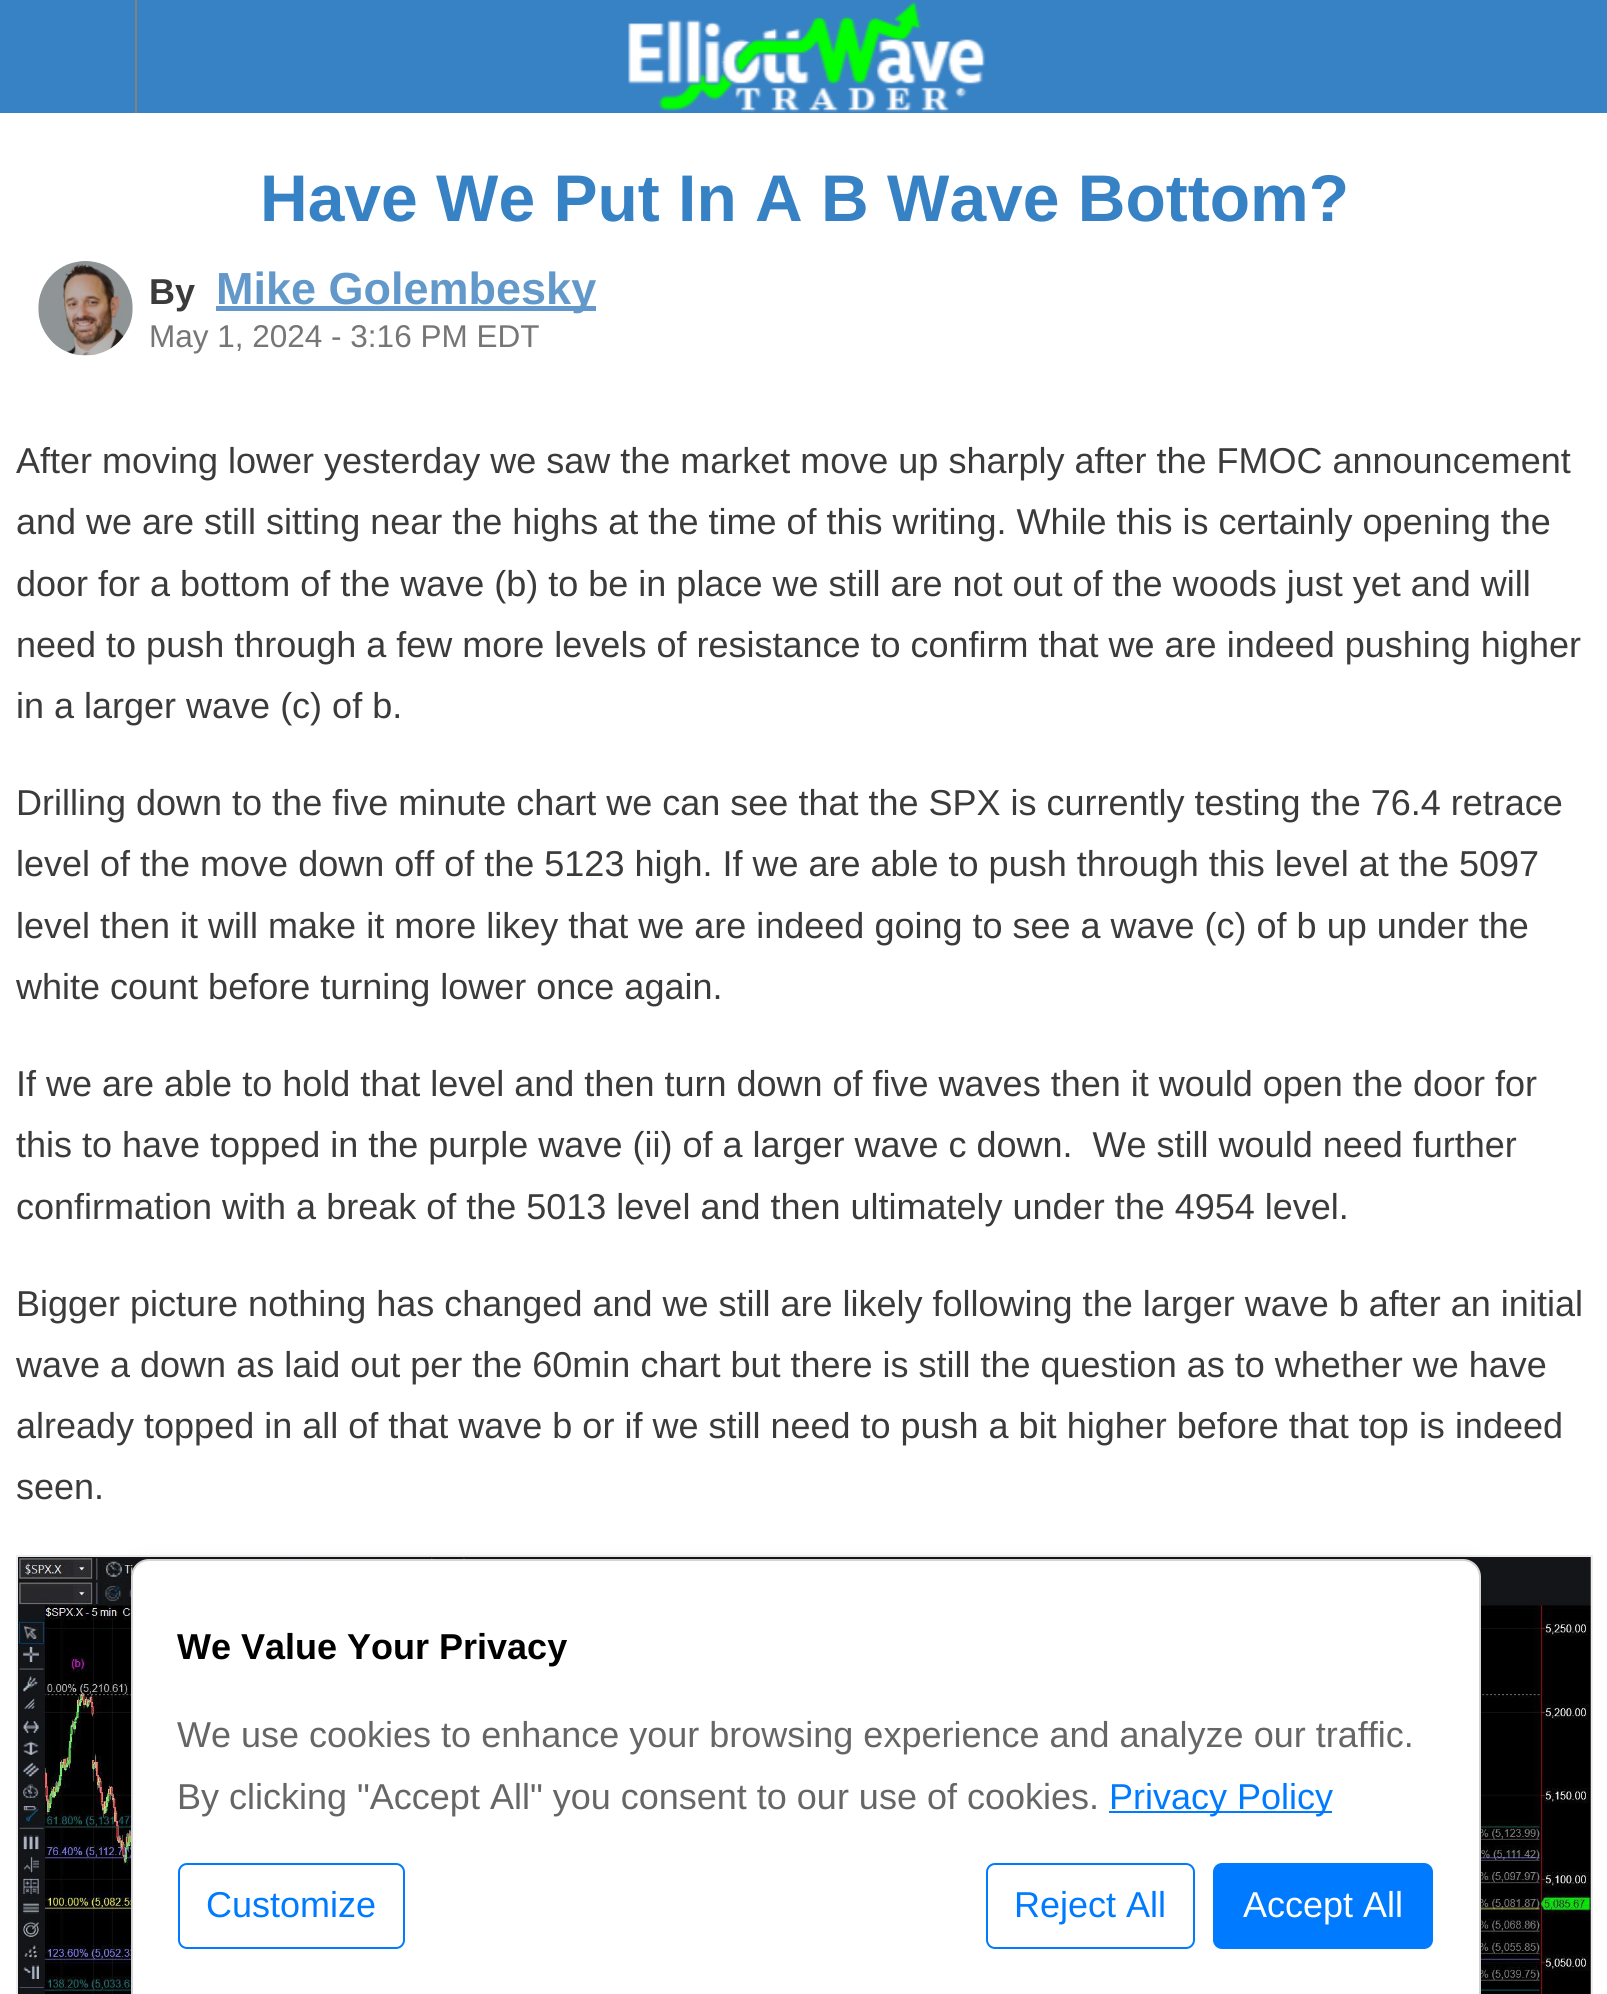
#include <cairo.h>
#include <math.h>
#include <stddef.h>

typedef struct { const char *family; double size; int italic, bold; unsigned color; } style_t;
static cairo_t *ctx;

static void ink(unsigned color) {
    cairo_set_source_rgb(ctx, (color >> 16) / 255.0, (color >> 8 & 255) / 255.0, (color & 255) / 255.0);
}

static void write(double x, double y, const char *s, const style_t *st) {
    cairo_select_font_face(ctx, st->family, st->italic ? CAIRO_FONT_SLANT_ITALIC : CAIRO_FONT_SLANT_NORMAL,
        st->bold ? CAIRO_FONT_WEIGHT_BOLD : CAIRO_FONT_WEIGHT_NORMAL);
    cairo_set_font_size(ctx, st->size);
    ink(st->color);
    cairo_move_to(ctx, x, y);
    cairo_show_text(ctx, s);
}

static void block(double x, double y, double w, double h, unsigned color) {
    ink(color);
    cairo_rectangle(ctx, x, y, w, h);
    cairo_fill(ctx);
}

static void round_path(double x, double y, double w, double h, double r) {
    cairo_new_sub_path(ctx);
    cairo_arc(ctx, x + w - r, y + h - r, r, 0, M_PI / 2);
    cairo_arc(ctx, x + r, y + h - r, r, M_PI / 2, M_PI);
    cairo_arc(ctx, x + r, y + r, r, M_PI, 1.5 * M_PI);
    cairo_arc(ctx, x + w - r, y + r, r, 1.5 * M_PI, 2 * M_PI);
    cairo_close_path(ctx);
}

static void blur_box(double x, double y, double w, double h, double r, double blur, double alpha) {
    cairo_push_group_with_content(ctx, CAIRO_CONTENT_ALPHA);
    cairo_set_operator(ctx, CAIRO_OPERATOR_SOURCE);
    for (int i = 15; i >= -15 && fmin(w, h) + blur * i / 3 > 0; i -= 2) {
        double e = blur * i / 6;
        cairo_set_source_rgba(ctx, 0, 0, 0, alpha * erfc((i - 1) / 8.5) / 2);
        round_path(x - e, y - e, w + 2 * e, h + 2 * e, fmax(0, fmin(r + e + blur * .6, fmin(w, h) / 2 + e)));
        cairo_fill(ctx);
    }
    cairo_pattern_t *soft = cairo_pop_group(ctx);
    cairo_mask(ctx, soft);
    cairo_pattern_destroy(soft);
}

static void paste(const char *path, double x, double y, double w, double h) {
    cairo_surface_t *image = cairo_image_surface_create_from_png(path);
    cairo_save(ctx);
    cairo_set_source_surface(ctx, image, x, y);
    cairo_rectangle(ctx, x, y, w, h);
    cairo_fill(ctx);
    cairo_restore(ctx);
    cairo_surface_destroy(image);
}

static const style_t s1 = {"Liberation Sans", 66, 0, 1, 0x3782c5};
static const style_t s2 = {"Liberation Sans", 36, 0, 1, 0x3b3b3b};
static const style_t s3 = {"Liberation Sans", 45, 0, 1, 0x6299ca};
static const style_t s4 = {"Liberation Sans", 31.5, 0, 0, 0x767676};
static const style_t s5 = {"Liberation Sans", 36, 0, 0, 0x3b3b3b};
static const style_t s6 = {"Liberation Sans", 36, 0, 1, 0x000000};
static const style_t s7 = {"Liberation Sans", 36, 0, 0, 0x666666};
static const style_t s8 = {"Liberation Sans", 36, 0, 0, 0x007bff};
static const style_t s9 = {"Liberation Sans", 36, 0, 0, 0xffffff};

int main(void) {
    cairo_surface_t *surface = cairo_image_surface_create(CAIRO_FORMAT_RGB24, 1607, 1994);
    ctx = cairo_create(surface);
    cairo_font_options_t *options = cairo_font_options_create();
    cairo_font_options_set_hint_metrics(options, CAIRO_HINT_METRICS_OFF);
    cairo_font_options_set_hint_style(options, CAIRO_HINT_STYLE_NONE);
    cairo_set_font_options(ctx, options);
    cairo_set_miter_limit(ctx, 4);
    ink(0xffffff);
    cairo_paint(ctx);
    block(0, 0, 1607, 113, 0x3782c5);
    block(135, 0, 2, 113, 0x808080);
    paste("pic1.png", 628, 2, 357, 110);
    write(260, 221, "Have We Put In A B Wave Bottom?", &s1);
    paste("pic2.png", 38, 261, 95, 95);
    write(149, 304, "By", &s2);
    block(216, 306, 380, 5, 0x6299ca);
    write(216, 304, "Mike Golembesky", &s3);
    write(149, 347, "May 1, 2024 - 3:16 PM EDT", &s4);
    write(16, 473, "After moving lower yesterday we saw the market move up sharply after the FMOC announcement", &s5);
    write(16, 534, "and we are still sitting near the highs at the time of this writing. While this is certainly opening the", &s5);
    write(16, 596, "door for a bottom of the wave (b) to be in place we still are not out of the woods just yet and will", &s5);
    write(16, 657, "need to push through a few more levels of resistance to confirm that we are indeed pushing higher", &s5);
    write(16, 718, "in a larger wave (c) of b.", &s5);
    write(16, 815, "Drilling down to the five minute chart we can see that the SPX is currently testing the 76.4 retrace", &s5);
    write(16, 876, "level of the move down off of the 5123 high. If we are able to push through this level at the 5097", &s5);
    write(16, 938, "level then it will make it more likey that we are indeed going to see a wave (c) of b up under the", &s5);
    write(16, 999, "white count before turning lower once again.", &s5);
    write(16, 1096, "If we are able to hold that level and then turn down of five waves then it would open the door for", &s5);
    write(16, 1157, "this to have topped in the purple wave (ii) of a larger wave c down.  We still would need further", &s5);
    write(16, 1219, "confirmation with a break of the 5013 level and then ultimately under the 4954 level.", &s5);
    write(16, 1316, "Bigger picture nothing has changed and we still are likely following the larger wave b after an initial", &s5);
    write(16, 1377, "wave a down as laid out per the 60min chart but there is still the question as to whether we have", &s5);
    write(16, 1438, "already topped in all of that wave b or if we still need to push a bit higher before that top is indeed", &s5);
    write(16, 1499, "seen.", &s5);
    cairo_rectangle(ctx, 17, 1556, 1575, 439);
    ink(0xededed);
    cairo_stroke(ctx);
    paste("pic3.png", 18, 1557, 1573, 437);
    ink(0x000000);
    blur_box(131, 1568, 1350, 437, 18, 13.5, 0.1);
    ink(0xffffff);
    cairo_new_path(ctx);
    cairo_move_to(ctx, 149, 1560);
    cairo_line_to(ctx, 1463, 1560);
    cairo_curve_to(ctx, 1472.5, 1560, 1480, 1567.5, 1480, 1577);
    cairo_line_to(ctx, 1480, 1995);
    cairo_line_to(ctx, 132, 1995);
    cairo_line_to(ctx, 132, 1577);
    cairo_curve_to(ctx, 132, 1567.5, 139.5, 1560, 149, 1560);
    cairo_close_path(ctx);
    cairo_fill_preserve(ctx);
    ink(0xd3d3d3);
    cairo_stroke(ctx);
    write(177, 1659, "We Value Your Privacy", &s6);
    write(177, 1747, "We use cookies to enhance your browsing experience and analyze our traffic.", &s7);
    write(177, 1809, "By clicking \"Accept All\" you consent to our use of cookies.", &s7);
    block(1109, 1811, 223, 2, 0x007bff);
    write(1109, 1809, "Privacy Policy", &s8);
    round_path(179, 1864, 225, 84, 8);
    cairo_stroke(ctx);
    write(206, 1917, "Customize", &s8);
    round_path(987, 1864, 207, 84, 8);
    cairo_stroke(ctx);
    write(1014, 1917, "Reject All", &s8);
    round_path(1214, 1864, 218, 84, 8);
    cairo_fill_preserve(ctx);
    cairo_stroke(ctx);
    write(1243, 1917, "Accept All", &s9);
    cairo_surface_write_to_png(surface, "screenshot.png");
    cairo_font_options_destroy(options);
    cairo_destroy(ctx);
    cairo_surface_destroy(surface);
    return 0;
}
